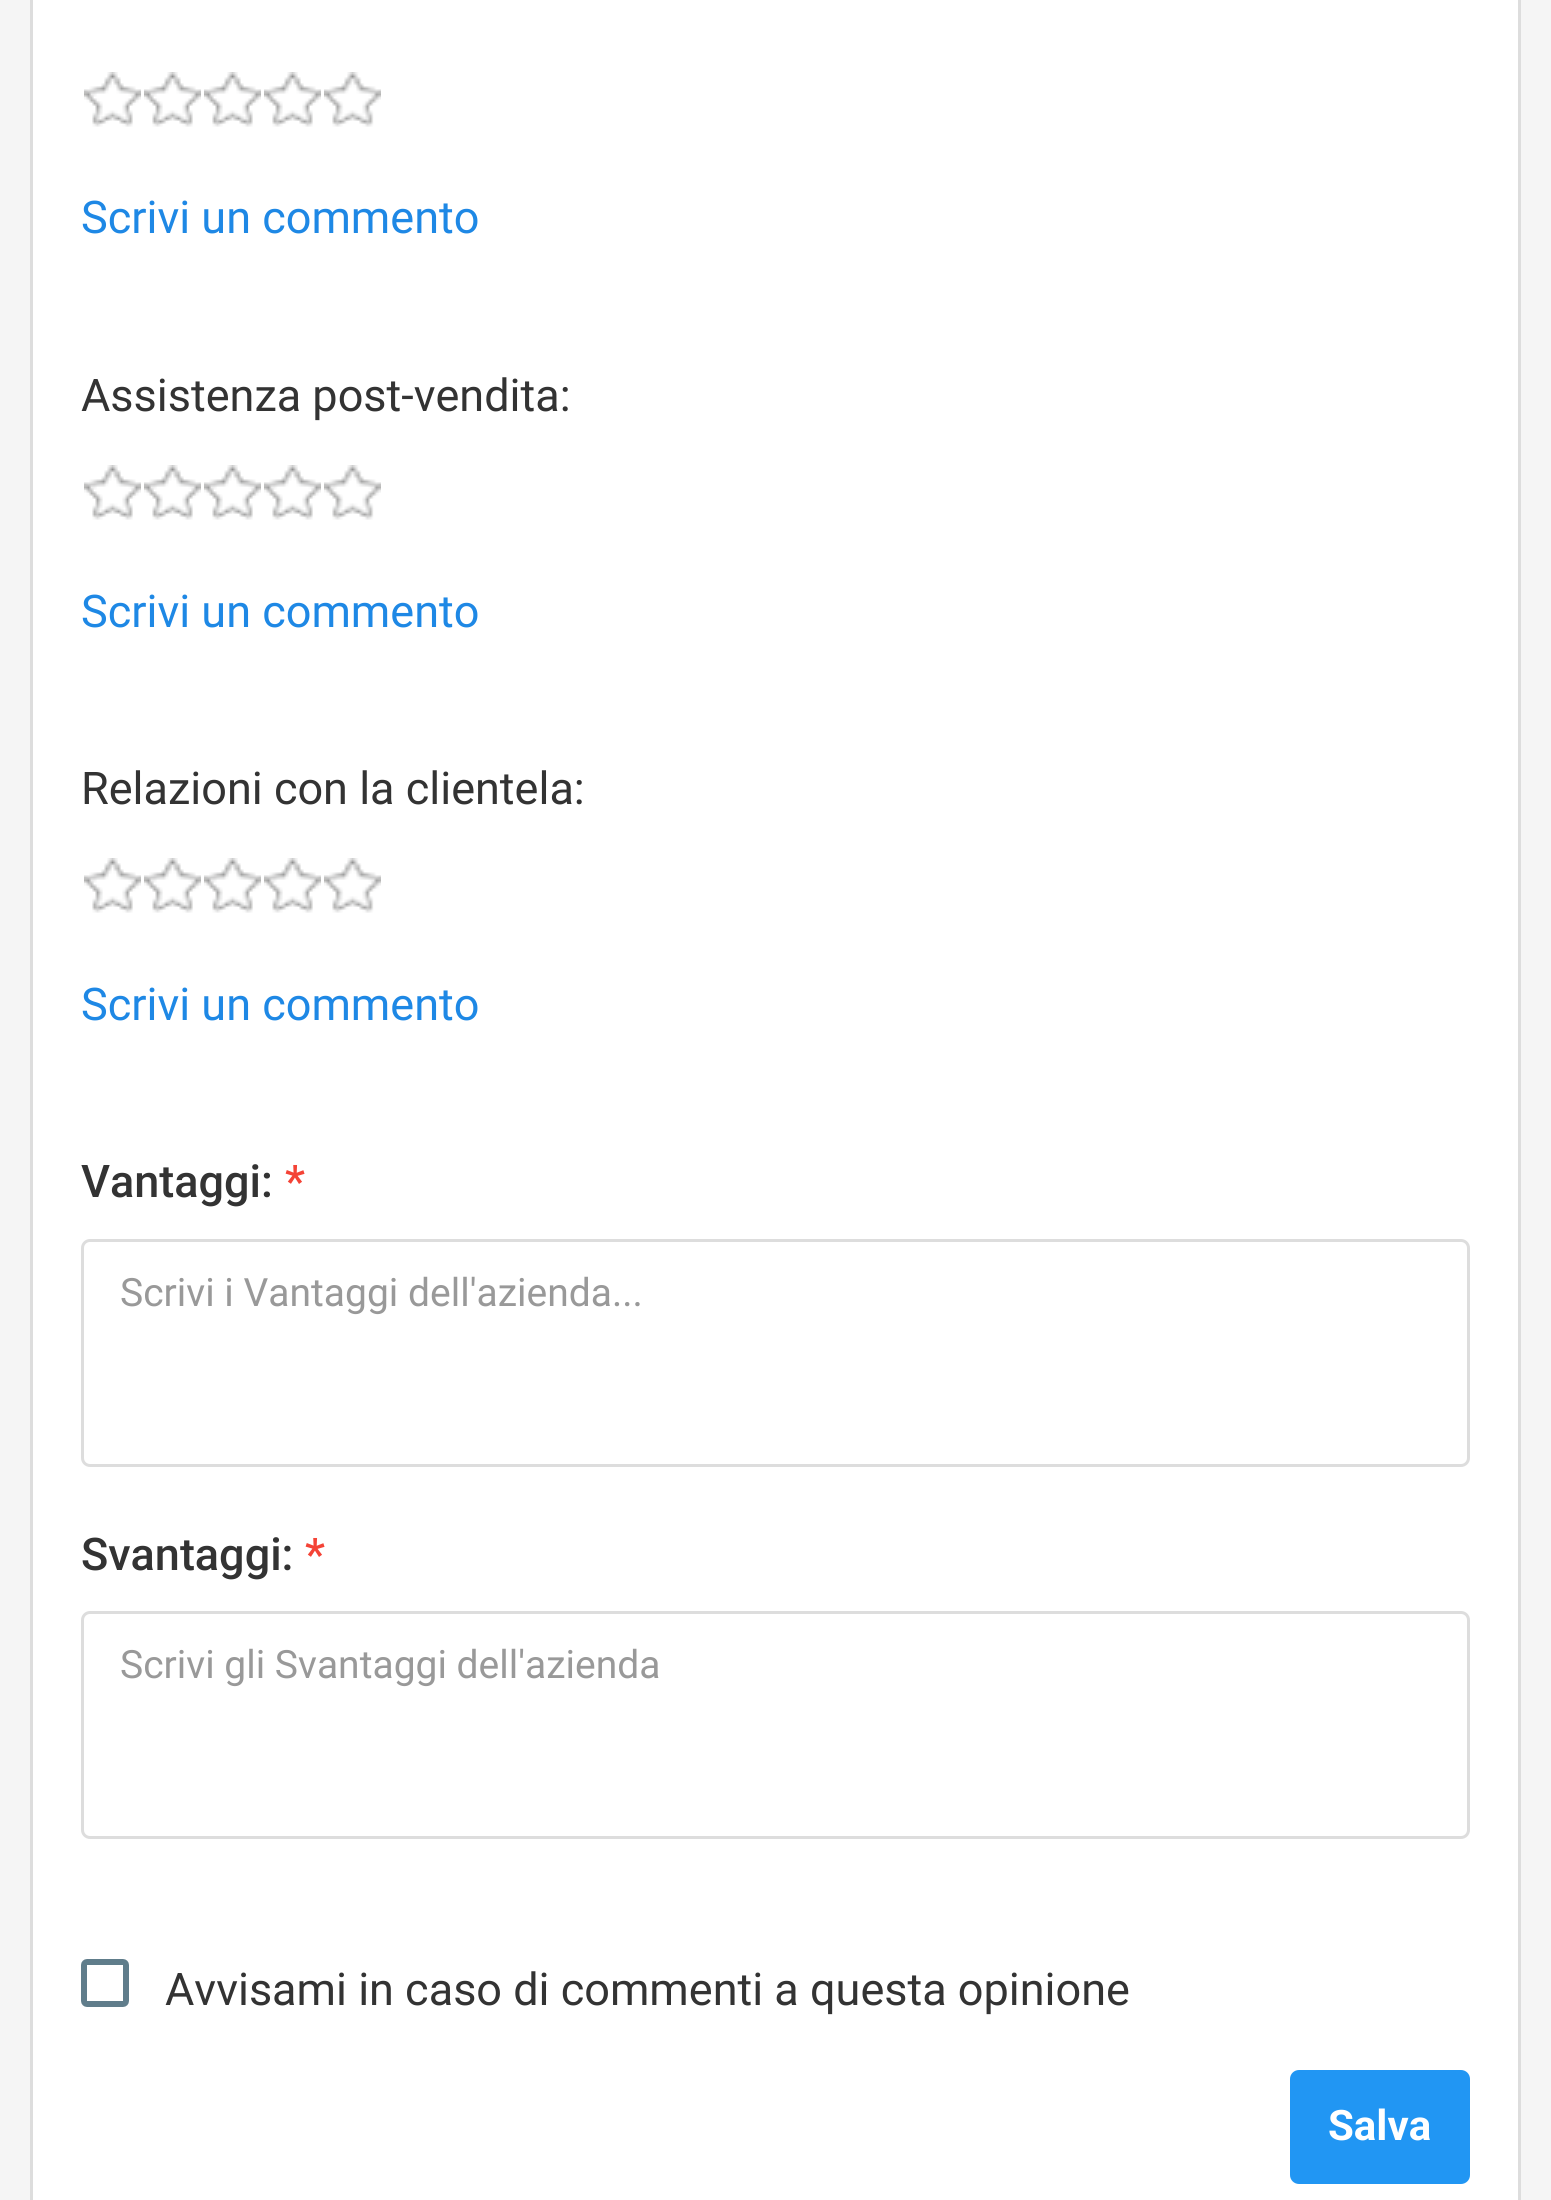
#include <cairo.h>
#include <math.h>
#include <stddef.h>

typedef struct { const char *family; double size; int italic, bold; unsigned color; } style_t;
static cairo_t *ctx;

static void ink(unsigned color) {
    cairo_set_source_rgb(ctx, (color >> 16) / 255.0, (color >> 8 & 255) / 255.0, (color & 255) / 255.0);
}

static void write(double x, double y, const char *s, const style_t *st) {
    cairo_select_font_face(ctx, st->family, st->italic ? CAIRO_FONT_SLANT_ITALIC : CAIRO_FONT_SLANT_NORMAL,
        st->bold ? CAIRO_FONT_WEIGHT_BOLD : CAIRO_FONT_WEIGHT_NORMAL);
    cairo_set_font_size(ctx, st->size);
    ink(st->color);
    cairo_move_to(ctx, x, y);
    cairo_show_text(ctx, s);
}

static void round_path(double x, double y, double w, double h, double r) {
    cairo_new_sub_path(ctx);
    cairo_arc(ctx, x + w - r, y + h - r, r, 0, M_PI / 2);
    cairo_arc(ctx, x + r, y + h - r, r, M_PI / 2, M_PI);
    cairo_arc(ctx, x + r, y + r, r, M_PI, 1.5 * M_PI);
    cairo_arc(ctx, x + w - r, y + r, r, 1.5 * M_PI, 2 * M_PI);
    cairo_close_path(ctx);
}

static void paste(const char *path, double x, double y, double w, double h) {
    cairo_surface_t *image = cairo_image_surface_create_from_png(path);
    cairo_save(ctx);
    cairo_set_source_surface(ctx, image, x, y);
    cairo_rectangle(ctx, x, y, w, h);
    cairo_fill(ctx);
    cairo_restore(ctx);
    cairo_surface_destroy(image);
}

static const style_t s1 = {"Roboto", 45, 0, 0, 0x1e88e5};
static const style_t s2 = {"Roboto", 45, 0, 0, 0x333333};
static const style_t s3 = {"Roboto Medium", 45, 0, 0, 0x333333};
static const style_t s4 = {"Roboto Medium", 45, 0, 0, 0xf44336};
static const style_t s5 = {"Roboto", 39, 0, 0, 0x999999};
static const style_t s6 = {"Roboto", 42, 0, 1, 0xffffff};

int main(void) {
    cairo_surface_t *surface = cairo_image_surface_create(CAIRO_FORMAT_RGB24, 1551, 2200);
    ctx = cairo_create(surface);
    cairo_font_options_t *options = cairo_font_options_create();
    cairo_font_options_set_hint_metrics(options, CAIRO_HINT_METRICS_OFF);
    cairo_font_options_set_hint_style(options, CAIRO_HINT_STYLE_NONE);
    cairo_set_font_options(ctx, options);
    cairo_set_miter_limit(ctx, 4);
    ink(0xf5f5f5);
    cairo_paint(ctx);
    ink(0xffffff);
    cairo_rectangle(ctx, 31.5, -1.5, 1488, 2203);
    cairo_fill_preserve(ctx);
    ink(0xdddddd);
    cairo_set_line_width(ctx, 3);
    cairo_stroke(ctx);
    paste("pic1.png", 84, 72, 57, 55);
    paste("pic1.png", 144, 72, 57, 55);
    paste("pic1.png", 204, 72, 57, 55);
    paste("pic2.png", 264, 72, 57, 55);
    paste("pic3.png", 324, 72, 57, 55);
    write(81, 233, "Scrivi un commento", &s1);
    write(81, 411, "Assistenza post-vendita:", &s2);
    paste("pic1.png", 84, 465, 57, 55);
    paste("pic1.png", 144, 465, 57, 55);
    paste("pic1.png", 204, 465, 57, 55);
    paste("pic2.png", 264, 465, 57, 55);
    paste("pic3.png", 324, 465, 57, 55);
    write(81, 627, "Scrivi un commento", &s1);
    write(81, 804, "Relazioni con la clientela:", &s2);
    paste("pic1.png", 84, 858, 57, 55);
    paste("pic1.png", 144, 858, 57, 55);
    paste("pic1.png", 204, 858, 57, 55);
    paste("pic2.png", 264, 858, 57, 55);
    paste("pic3.png", 324, 858, 57, 55);
    write(81, 1020, "Scrivi un commento", &s1);
    write(81, 1197, "Vantaggi:", &s3);
    write(285, 1197, "*", &s4);
    round_path(82.5, 1240.5, 1386, 225, 7.5);
    ink(0xdddddd);
    cairo_stroke(ctx);
    write(120, 1306, "Scrivi i Vantaggi dell'azienda...", &s5);
    write(81, 1570, "Svantaggi:", &s3);
    write(305, 1570, "*", &s4);
    round_path(82.5, 1612.5, 1386, 225, 7.5);
    ink(0xdddddd);
    cairo_stroke(ctx);
    write(120, 1678, "Scrivi gli Svantaggi dell'azienda", &s5);
    round_path(84, 1962, 42, 42, 3);
    ink(0x607d8b);
    cairo_set_line_width(ctx, 6);
    cairo_stroke(ctx);
    write(165, 2005, "Avvisami in caso di commenti a questa opinione", &s2);
    ink(0x2196f3);
    round_path(1291.5, 2071.5, 177, 111, 7.5);
    cairo_fill_preserve(ctx);
    cairo_set_line_width(ctx, 3);
    cairo_stroke(ctx);
    write(1328, 2140, "Salva", &s6);
    cairo_surface_write_to_png(surface, "screenshot.png");
    cairo_font_options_destroy(options);
    cairo_destroy(ctx);
    cairo_surface_destroy(surface);
    return 0;
}
